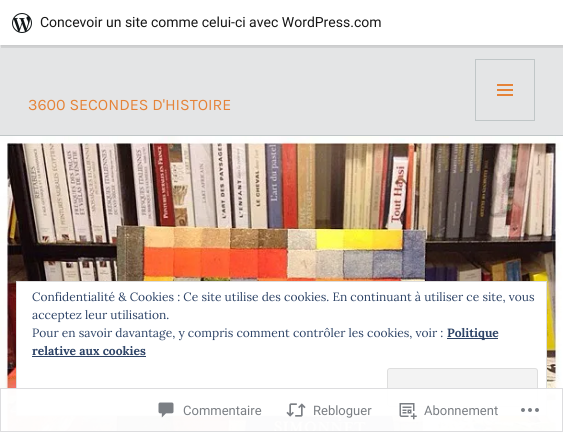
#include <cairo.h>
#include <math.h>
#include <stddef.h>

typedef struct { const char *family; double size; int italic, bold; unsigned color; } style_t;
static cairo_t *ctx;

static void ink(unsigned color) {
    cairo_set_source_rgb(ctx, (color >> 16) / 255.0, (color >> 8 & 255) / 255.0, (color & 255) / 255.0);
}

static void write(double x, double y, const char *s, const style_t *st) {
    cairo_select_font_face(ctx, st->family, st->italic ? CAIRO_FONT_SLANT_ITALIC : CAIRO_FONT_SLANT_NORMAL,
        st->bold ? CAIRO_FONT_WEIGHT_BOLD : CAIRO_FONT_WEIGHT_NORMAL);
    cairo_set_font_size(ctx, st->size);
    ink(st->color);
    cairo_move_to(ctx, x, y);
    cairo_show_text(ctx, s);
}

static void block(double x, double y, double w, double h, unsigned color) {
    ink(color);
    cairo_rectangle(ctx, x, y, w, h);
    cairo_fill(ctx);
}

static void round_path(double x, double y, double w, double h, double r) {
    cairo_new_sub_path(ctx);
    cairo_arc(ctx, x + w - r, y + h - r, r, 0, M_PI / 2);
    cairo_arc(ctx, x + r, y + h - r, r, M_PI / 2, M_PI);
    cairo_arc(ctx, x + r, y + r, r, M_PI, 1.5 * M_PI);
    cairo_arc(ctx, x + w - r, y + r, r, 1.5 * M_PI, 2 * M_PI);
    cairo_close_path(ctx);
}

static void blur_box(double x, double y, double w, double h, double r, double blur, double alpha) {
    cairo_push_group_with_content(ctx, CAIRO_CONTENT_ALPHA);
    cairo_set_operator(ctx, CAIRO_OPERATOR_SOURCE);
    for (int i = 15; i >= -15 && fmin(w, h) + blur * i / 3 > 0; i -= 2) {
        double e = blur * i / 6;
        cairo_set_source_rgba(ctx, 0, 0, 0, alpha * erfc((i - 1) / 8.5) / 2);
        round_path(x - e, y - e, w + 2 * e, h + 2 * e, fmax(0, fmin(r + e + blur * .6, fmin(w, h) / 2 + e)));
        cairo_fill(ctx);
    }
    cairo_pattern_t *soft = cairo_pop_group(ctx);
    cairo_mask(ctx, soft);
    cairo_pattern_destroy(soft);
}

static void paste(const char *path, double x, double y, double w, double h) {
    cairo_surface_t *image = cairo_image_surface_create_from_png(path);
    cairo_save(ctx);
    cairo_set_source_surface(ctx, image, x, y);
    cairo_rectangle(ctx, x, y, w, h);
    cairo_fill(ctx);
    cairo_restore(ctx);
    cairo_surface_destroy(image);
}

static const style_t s1 = {"Roboto", 14, 0, 0, 0x171717};
static const style_t s2 = {"Karla", 16, 0, 0, 0xe58338};
static const style_t s3 = {"Lora", 12, 0, 0, 0x2e4467};
static const style_t s4 = {"Lora", 12, 0, 1, 0x2e4467};
static const style_t s5 = {"Roboto", 13, 0, 0, 0x7b7f84};

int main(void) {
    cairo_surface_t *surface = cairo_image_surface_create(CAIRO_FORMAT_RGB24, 563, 432);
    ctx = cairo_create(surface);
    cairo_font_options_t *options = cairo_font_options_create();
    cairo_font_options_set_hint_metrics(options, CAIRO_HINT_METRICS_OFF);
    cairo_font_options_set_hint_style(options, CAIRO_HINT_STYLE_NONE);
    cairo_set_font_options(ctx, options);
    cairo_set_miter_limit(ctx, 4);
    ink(0xe4e5e6);
    cairo_paint(ctx);
    ink(0x000000);
    blur_box(0, 1, 563, 45, 0, 1, 0.05);
    cairo_set_source_rgba(ctx, 0, 0, 0, 0.08);
    cairo_new_path(ctx);
    cairo_move_to(ctx, 1, 45);
    cairo_line_to(ctx, 1, 48);
    cairo_line_to(ctx, 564, 48);
    cairo_line_to(ctx, 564, 3);
    cairo_line_to(ctx, 563, 3);
    cairo_line_to(ctx, 563, 45);
    cairo_close_path(ctx);
    cairo_fill(ctx);
    block(0, 0, 563, 45, 0xffffff);
    paste("pic1.png", 12, 13, 20, 20);
    write(40, 27, "Concevoir un site comme celui-ci avec WordPress.com", &s1);
    block(0, 135, 563, 1, 0xc0c6c7);
    write(28, 110, "3600 SECONDES D'HISTOIRE", &s2);
    cairo_rectangle(ctx, 475.5, 59.5, 59, 61);
    ink(0xc0c6c7);
    cairo_set_line_width(ctx, 1);
    cairo_stroke(ctx);
    paste("pic2.png", 497, 84, 16, 12);
    paste("pic3.png", 0, 136, 563, 296);
    ink(0xffffff);
    cairo_rectangle(ctx, 16.5, 281.5, 530, 134);
    cairo_fill_preserve(ctx);
    ink(0xdedede);
    cairo_stroke(ctx);
    write(32, 301, "Confidentialité & Cookies : Ce site utilise des cookies. En continuant à utiliser ce site, vous", &s3);
    write(32, 319, "acceptez leur utilisation.", &s3);
    write(32, 337, "Pour en savoir davantage, y compris comment contrôler les cookies, voir :", &s3);
    block(447, 338, 51, 1, 0x2e4467);
    write(447, 337, "Politique", &s4);
    write(32, 355, "relative aux cookies", &s4);
    block(32, 356, 114, 1, 0x2e4467);
    ink(0xf3f3f3);
    round_path(387.5, 368.5, 150, 38, 2.5);
    cairo_fill_preserve(ctx);
    ink(0xdedede);
    cairo_stroke(ctx);
    cairo_set_source_rgba(ctx, 1, 1, 1, 0.98);
    cairo_rectangle(ctx, 0, 388, 562, 44);
    cairo_fill(ctx);
    cairo_rectangle(ctx, 0.5, 388.5, 562, 43);
    cairo_set_source_rgba(ctx, 0.863, 0.863, 0.871, 0.98);
    cairo_stroke(ctx);
    paste("pic4.png", 158, 402, 16, 16);
    write(183, 415, "Commentaire", &s5);
    paste("pic5.png", 286, 403, 20, 14);
    write(313, 415, "Rebloguer", &s5);
    paste("pic6.png", 399, 403, 18, 17);
    write(424, 415, "Abonnement", &s5);
    paste("pic7.png", 521, 408, 18, 4);
    cairo_surface_write_to_png(surface, "screenshot.png");
    cairo_font_options_destroy(options);
    cairo_destroy(ctx);
    cairo_surface_destroy(surface);
    return 0;
}
